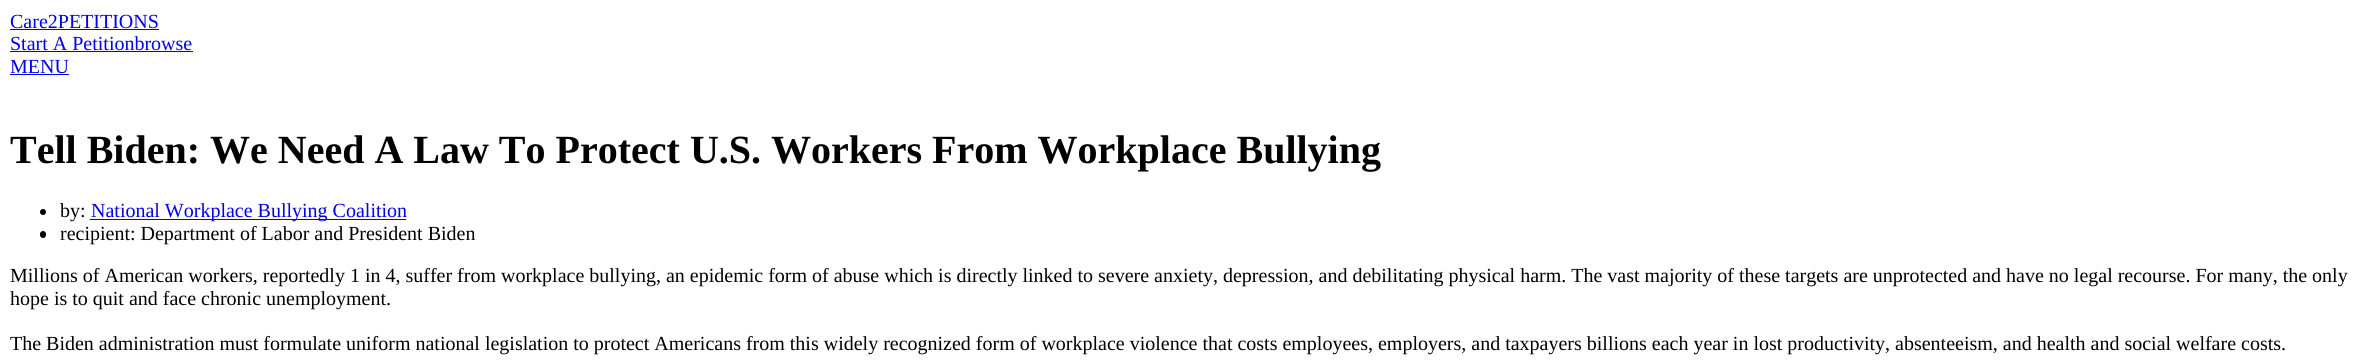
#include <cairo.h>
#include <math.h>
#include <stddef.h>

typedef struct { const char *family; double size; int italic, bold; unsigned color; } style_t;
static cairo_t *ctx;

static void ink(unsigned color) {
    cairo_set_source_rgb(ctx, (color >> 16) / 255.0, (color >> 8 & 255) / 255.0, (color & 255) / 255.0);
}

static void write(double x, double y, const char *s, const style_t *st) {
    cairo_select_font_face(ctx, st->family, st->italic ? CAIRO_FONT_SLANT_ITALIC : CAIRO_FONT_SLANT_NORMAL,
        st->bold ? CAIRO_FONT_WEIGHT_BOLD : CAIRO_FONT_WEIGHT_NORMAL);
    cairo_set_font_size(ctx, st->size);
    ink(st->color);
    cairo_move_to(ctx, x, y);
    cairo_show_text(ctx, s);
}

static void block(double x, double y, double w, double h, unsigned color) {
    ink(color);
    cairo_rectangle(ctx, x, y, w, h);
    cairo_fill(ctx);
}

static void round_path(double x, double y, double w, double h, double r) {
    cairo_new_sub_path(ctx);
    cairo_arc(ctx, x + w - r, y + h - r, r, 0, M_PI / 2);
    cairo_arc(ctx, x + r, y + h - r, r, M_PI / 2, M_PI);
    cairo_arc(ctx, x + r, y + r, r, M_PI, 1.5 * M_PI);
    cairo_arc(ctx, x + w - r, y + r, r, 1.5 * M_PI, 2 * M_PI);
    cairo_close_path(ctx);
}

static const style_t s1 = {"Liberation Serif", 20, 0, 0, 0x0000ee};
static const style_t s2 = {"Liberation Serif", 40, 0, 1, 0x000000};
static const style_t s3 = {"Liberation Serif", 20, 0, 0, 0x000000};

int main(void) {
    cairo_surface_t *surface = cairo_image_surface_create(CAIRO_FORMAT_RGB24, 2366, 364);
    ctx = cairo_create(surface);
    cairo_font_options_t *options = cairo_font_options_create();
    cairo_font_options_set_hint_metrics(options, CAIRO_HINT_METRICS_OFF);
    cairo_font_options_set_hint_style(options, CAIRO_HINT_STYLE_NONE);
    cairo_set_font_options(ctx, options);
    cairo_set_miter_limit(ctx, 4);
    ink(0xffffff);
    cairo_paint(ctx);
    write(10, 28, "Care2PETITIONS", &s1);
    block(10, 29, 149, 1, 0x0000ee);
    write(10, 50, "Start A Petitionbrowse", &s1);
    block(10, 51, 183, 1, 0x0000ee);
    write(10, 73, "MENU", &s1);
    block(10, 74, 59, 1, 0x0000ee);
    write(10, 163, "Tell Biden: We Need A Law To Protect U.S. Workers From Workplace Bullying", &s2);
    cairo_new_path(ctx);
    cairo_arc(ctx, 43, 212, 3, 0, 2 * M_PI);
    cairo_fill(ctx);
    write(60, 217, "by:", &s3);
    block(90, 219, 316, 1, 0x0000ee);
    write(91, 217, "National Workplace Bullying Coalition", &s1);
    ink(0x000000);
    round_path(40, 231, 6, 7, 3);
    cairo_fill(ctx);
    write(60, 240, "recipient: Department of Labor and President Biden", &s3);
    write(10, 282, "Millions of American workers, reportedly 1 in 4, suffer from workplace bullying, an epidemic form of abuse which is directly linked to severe anxiety, depression, and debilitating physical harm. The vast majority of these targets are unprotected and have no legal recourse. For many, the only", &s3);
    write(10, 305, "hope is to quit and face chronic unemployment.", &s3);
    write(10, 350, "The Biden administration must formulate uniform national legislation to protect Americans from this widely recognized form of workplace violence that costs employees, employers, and taxpayers billions each year in lost productivity, absenteeism, and health and social welfare costs.", &s3);
    cairo_surface_write_to_png(surface, "screenshot.png");
    cairo_font_options_destroy(options);
    cairo_destroy(ctx);
    cairo_surface_destroy(surface);
    return 0;
}
